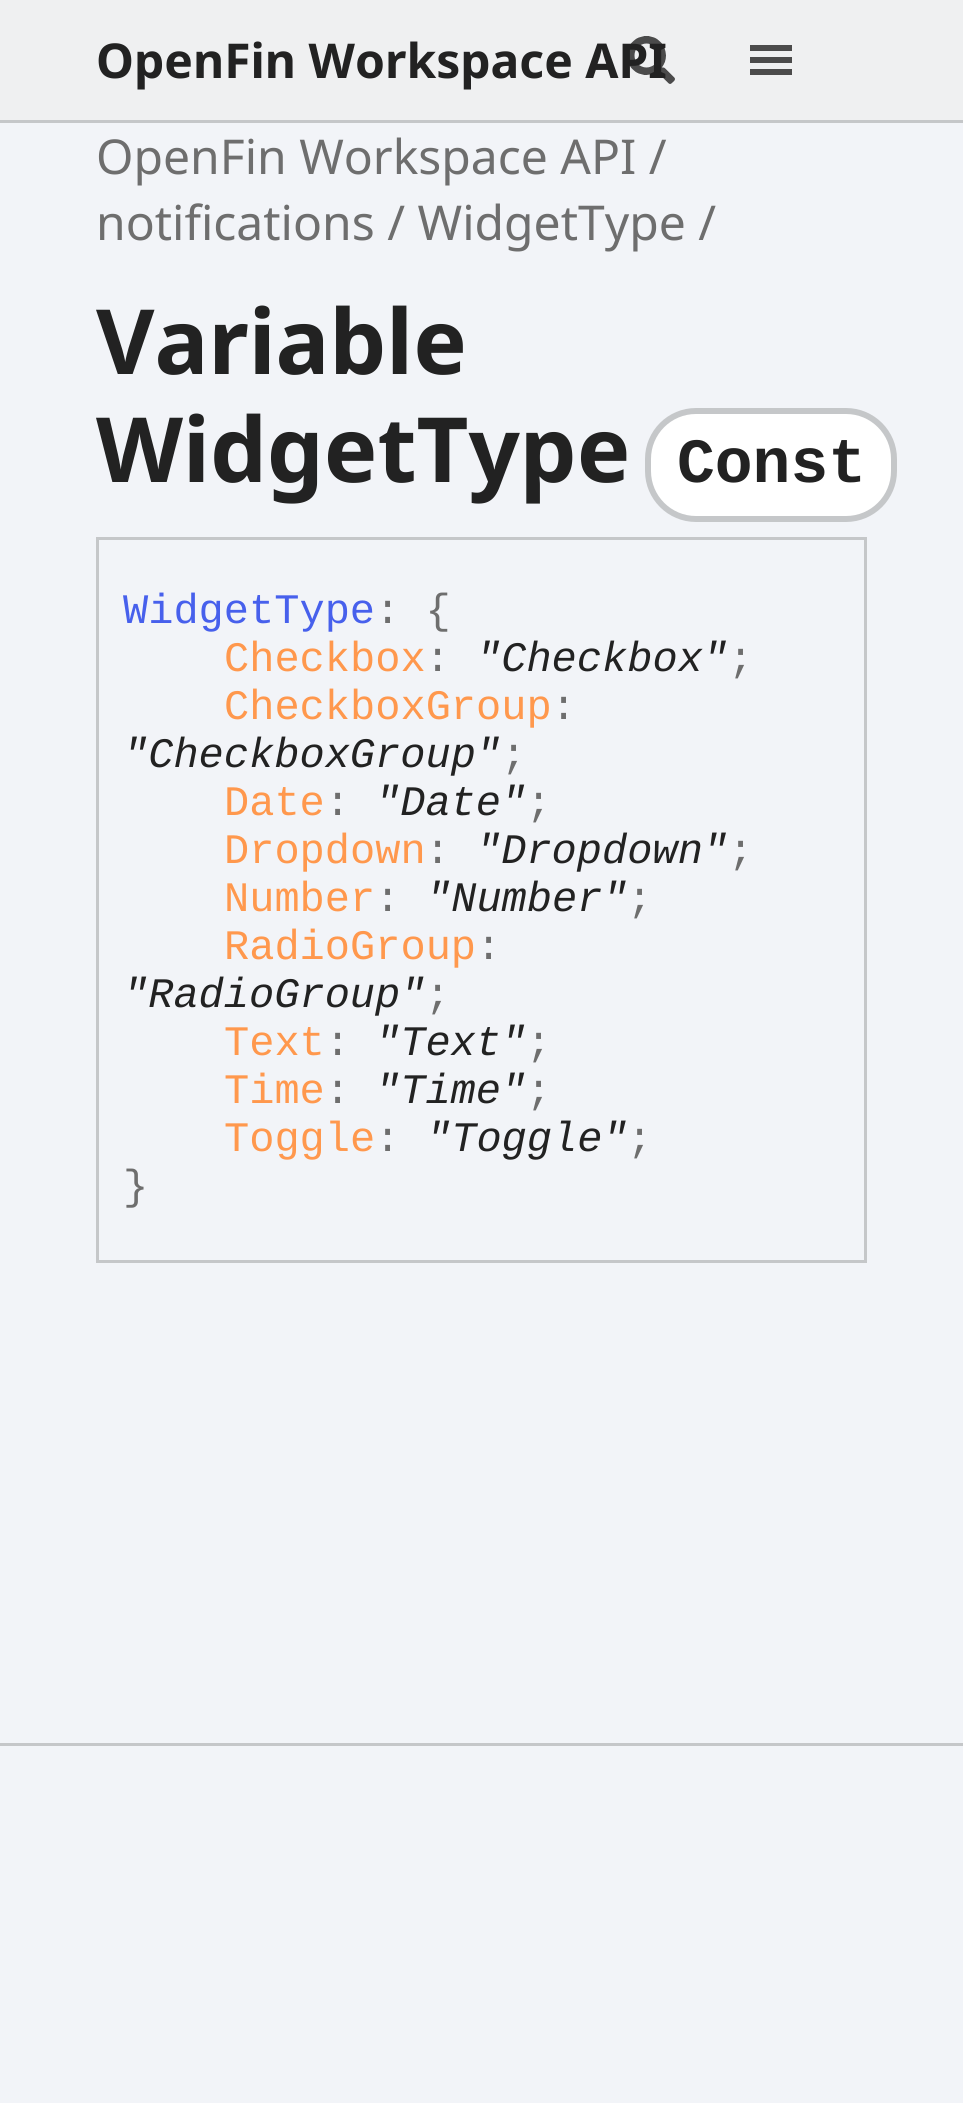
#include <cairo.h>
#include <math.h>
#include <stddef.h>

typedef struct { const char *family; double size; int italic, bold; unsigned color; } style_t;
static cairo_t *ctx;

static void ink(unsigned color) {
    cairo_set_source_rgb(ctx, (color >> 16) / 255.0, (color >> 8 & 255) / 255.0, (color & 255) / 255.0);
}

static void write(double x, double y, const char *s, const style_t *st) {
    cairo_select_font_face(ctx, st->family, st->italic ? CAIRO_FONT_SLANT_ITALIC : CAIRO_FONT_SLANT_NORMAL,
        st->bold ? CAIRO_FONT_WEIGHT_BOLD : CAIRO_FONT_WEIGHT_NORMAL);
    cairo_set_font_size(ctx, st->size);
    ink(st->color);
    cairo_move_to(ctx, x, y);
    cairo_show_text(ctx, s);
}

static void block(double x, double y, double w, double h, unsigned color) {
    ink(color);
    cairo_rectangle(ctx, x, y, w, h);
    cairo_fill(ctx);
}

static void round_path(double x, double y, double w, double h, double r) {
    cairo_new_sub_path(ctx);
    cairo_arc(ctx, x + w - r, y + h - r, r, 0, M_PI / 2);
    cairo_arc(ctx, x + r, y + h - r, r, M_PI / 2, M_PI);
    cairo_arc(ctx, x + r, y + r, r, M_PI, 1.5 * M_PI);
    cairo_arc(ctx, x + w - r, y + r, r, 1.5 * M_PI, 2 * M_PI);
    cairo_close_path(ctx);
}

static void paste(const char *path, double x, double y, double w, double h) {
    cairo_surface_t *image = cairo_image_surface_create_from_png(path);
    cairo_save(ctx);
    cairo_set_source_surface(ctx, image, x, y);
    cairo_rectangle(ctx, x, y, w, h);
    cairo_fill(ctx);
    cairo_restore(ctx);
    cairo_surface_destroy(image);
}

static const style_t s1 = {"Noto Sans", 48, 0, 1, 0x222222};
static const style_t s2 = {"Noto Sans", 48, 0, 0, 0x6e6e6e};
static const style_t s3 = {"Noto Sans", 90, 0, 1, 0x222222};
static const style_t s4 = {"Liberation Mono", 63, 0, 1, 0x222222};
static const style_t s5 = {"Liberation Mono", 42, 0, 0, 0x4760ec};
static const style_t s6 = {"Liberation Mono", 42, 0, 0, 0x6e6e6e};
static const style_t s7 = {"Liberation Mono", 42, 0, 0, 0xff984d};
static const style_t s8 = {"Liberation Mono", 42, 1, 0, 0x222222};

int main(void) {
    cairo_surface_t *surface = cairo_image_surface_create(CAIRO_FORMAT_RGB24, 963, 2103);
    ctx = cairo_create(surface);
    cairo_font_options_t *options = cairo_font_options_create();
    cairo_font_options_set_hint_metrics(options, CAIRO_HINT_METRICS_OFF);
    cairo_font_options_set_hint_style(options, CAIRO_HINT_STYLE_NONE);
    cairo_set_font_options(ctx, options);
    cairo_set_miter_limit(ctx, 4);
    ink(0xf2f4f8);
    cairo_paint(ctx);
    block(0, 0, 963, 120, 0xeff0f1);
    block(0, 120, 963, 3, 0xc5c7c9);
    paste("pic1.png", 627, 36, 48, 48);
    write(96, 78, "OpenFin Workspace API", &s1);
    paste("pic2.png", 750, 45, 42, 30);
    write(96, 174, "OpenFin Workspace API /", &s2);
    write(96, 240, "notifications / WidgetType /", &s2);
    write(96, 374, "Variable", &s3);
    write(96, 482, "WidgetType", &s3);
    ink(0xffffff);
    round_path(648, 411, 246, 108, 48);
    cairo_fill_preserve(ctx);
    ink(0xc5c7c9);
    cairo_set_line_width(ctx, 6);
    cairo_stroke(ctx);
    write(677, 482, "Const", &s4);
    cairo_rectangle(ctx, 97.5, 538.5, 768, 723);
    ink(0xc5c7c9);
    cairo_set_line_width(ctx, 3);
    cairo_stroke(ctx);
    write(123, 623, "WidgetType", &s5);
    write(375, 623, ": {", &s6);
    write(224, 671, "Checkbox", &s7);
    write(425, 671, ":", &s6);
    write(476, 671, "\"Checkbox\"", &s8);
    write(728, 671, ";", &s6);
    write(224, 719, "CheckboxGroup", &s7);
    write(551, 719, ":", &s6);
    write(123, 767, "\"CheckboxGroup\"", &s8);
    write(501, 767, ";", &s6);
    write(224, 815, "Date", &s7);
    write(325, 815, ":", &s6);
    write(375, 815, "\"Date\"", &s8);
    write(526, 815, ";", &s6);
    write(224, 863, "Dropdown", &s7);
    write(425, 863, ":", &s6);
    write(476, 863, "\"Dropdown\"", &s8);
    write(728, 863, ";", &s6);
    write(224, 911, "Number", &s7);
    write(375, 911, ":", &s6);
    write(426, 911, "\"Number\"", &s8);
    write(627, 911, ";", &s6);
    write(224, 959, "RadioGroup", &s7);
    write(476, 959, ":", &s6);
    write(123, 1007, "\"RadioGroup\"", &s8);
    write(425, 1007, ";", &s6);
    write(224, 1055, "Text", &s7);
    write(325, 1055, ":", &s6);
    write(375, 1055, "\"Text\"", &s8);
    write(526, 1055, ";", &s6);
    write(224, 1103, "Time", &s7);
    write(325, 1103, ":", &s6);
    write(375, 1103, "\"Time\"", &s8);
    write(526, 1103, ";", &s6);
    write(224, 1151, "Toggle", &s7);
    write(375, 1151, ":", &s6);
    write(426, 1151, "\"Toggle\"", &s8);
    write(627, 1151, ";", &s6);
    write(123, 1199, "}", &s6);
    block(0, 1743, 963, 3, 0xc5c7c9);
    cairo_surface_write_to_png(surface, "screenshot.png");
    cairo_font_options_destroy(options);
    cairo_destroy(ctx);
    cairo_surface_destroy(surface);
    return 0;
}
